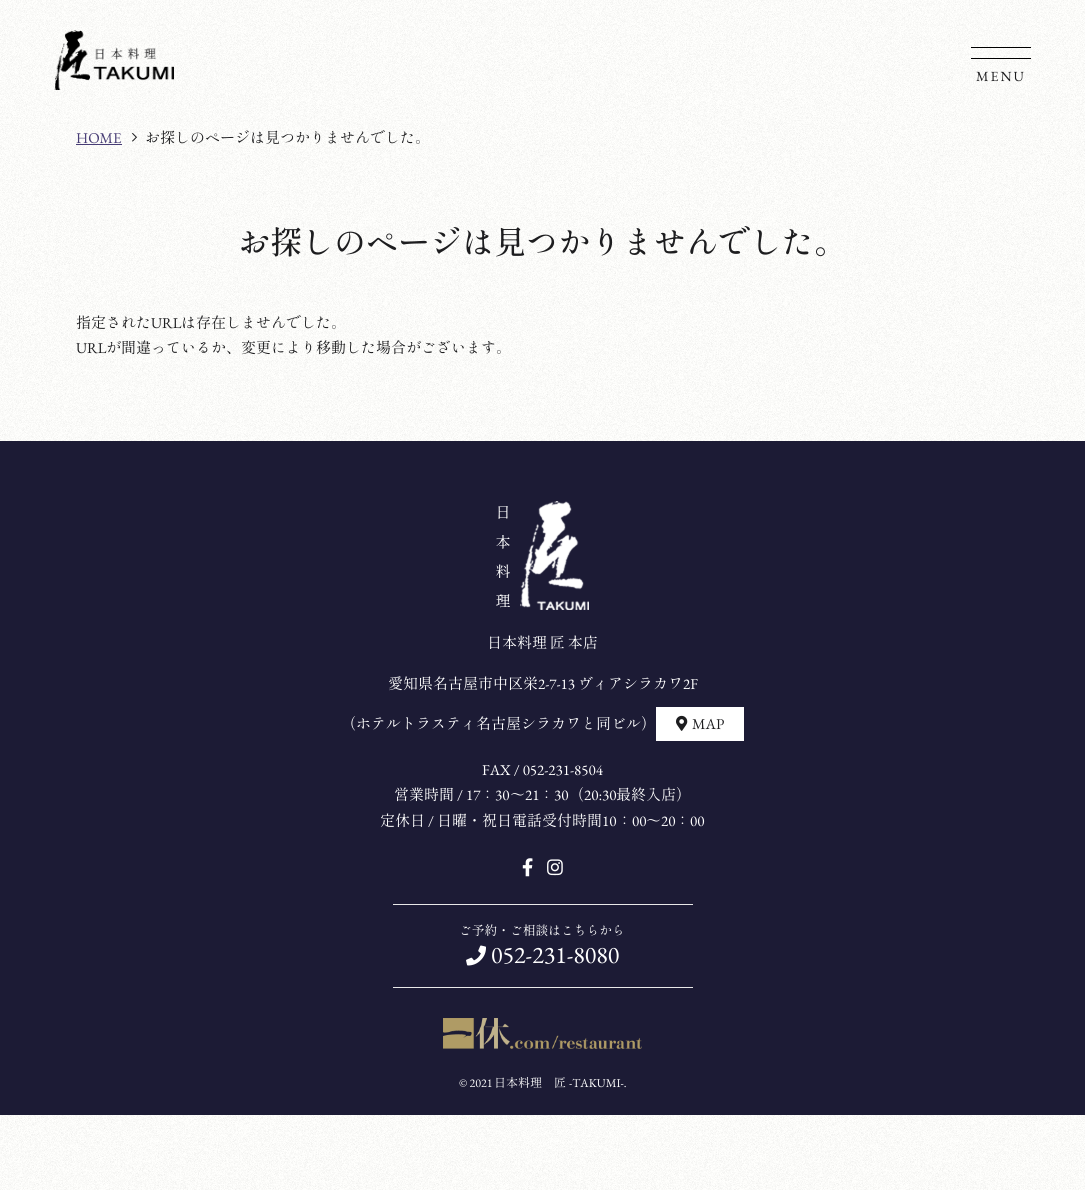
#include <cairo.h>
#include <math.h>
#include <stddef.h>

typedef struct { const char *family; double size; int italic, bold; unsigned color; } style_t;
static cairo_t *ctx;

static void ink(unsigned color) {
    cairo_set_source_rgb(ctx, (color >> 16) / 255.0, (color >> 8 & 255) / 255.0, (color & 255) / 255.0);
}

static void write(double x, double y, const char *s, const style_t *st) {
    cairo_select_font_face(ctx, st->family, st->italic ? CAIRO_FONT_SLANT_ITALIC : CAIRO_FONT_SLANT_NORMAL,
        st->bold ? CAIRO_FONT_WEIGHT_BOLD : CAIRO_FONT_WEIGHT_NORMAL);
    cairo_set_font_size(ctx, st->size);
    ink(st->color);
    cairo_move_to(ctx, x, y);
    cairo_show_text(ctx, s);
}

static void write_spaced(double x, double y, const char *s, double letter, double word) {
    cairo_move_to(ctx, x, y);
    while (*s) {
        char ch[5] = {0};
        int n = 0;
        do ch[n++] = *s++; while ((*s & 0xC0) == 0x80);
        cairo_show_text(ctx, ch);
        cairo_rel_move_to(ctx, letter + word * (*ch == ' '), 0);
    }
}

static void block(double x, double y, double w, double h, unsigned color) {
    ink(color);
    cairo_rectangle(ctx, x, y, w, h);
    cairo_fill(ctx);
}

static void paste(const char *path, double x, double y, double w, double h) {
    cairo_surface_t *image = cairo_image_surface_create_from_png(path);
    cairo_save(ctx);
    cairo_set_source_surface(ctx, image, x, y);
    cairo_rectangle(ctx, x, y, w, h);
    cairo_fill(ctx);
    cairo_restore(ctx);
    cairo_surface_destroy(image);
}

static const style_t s1 = {"EB Garamond", 15, 0, 0, 0x473c75};
static const style_t s2 = {"Shippori Mincho B1", 15, 0, 0, 0x1d1d1f};
static const style_t s3 = {"Shippori Mincho B1 Medium", 32, 0, 0, 0x1d1d1f};
static const style_t s4 = {"EB Garamond", 15, 0, 0, 0x1d1d1f};
static const style_t s5 = {"Shippori Mincho B1", 15, 0, 0, 0xffffff};
static const style_t s6 = {"EB Garamond", 15, 0, 0, 0xffffff};
static const style_t s7 = {"Shippori Mincho B1", 12.75, 0, 0, 0xffffff};
static const style_t s8 = {"EB Garamond", 24, 0, 0, 0xffffff};
static const style_t s9 = {"EB Garamond", 12, 0, 0, 0xffffff};
static const style_t s10 = {"Shippori Mincho B1", 12, 0, 0, 0xffffff};

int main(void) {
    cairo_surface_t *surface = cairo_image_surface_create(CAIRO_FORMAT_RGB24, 1085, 1190);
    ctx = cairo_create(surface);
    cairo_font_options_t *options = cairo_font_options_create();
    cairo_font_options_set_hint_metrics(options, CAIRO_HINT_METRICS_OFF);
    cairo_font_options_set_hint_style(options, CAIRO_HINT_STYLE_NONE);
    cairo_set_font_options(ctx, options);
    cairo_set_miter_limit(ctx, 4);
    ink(0xffffff);
    cairo_paint(ctx);
    paste("pic1.png", 0, 0, 1085, 1190);
    paste("pic2.png", 54, 30, 120, 60);
    block(971, 47, 60, 1, 0x000000);
    block(971, 58, 60, 1, 0x000000);
    cairo_select_font_face(ctx, "EB Garamond", CAIRO_FONT_SLANT_NORMAL, CAIRO_FONT_WEIGHT_NORMAL);
    cairo_set_font_size(ctx, 14);
    ink(0x1d1d1f);
    write_spaced(976, 81, "MENU", 2, 0);
    write(76, 143, "HOME", &s1);
    block(76, 144, 46, 1, 0x473c75);
    paste("pic3.png", 132, 133, 5, 9);
    write(145, 143, "お探しのページは見つかりませんでした。", &s2);
    write(238, 254, "お探しのページは見つかりませんでした。", &s3);
    write(76, 328, "指定された", &s2);
    write(151, 328, "URL", &s4);
    write(181, 328, "は存在しませんでした。", &s2);
    write(76, 353, "URL", &s4);
    write(106, 353, "が間違っているか、変更により移動した場合がございます。", &s2);
    block(0, 441, 1085, 674, 0x1c1b35);
    paste("pic4.png", 496, 501, 93, 109);
    ink(0xffffff);
    write_spaced(487, 648, "日本料理 匠 本店", 0, -1);
    write(388, 689, "愛知県名古屋市中区栄", &s5);
    write(538, 689, "2-7-13", &s6);
    write(578, 689, "ヴィアシラカワ", &s5);
    write(683, 689, "2F", &s6);
    write(341, 729, "（ホテルトラスティ名古屋シラカワと同ビル）", &s5);
    block(656, 707, 88, 34, 0xffffff);
    paste("pic5.png", 676, 715, 12, 16);
    write(692, 729, "MAP", &s4);
    write(482, 775, "FAX / 052-231-8504", &s6);
    write(394, 800, "営業時間", &s5);
    write(457, 800, "/ 17", &s6);
    write(480, 800, "：", &s5);
    write(495, 800, "30", &s6);
    write(510, 800, "～", &s5);
    write(525, 800, "21", &s6);
    write(539, 800, "：", &s5);
    write(554, 800, "30", &s6);
    write(569, 800, "（", &s5);
    write(584, 800, "20:30", &s6);
    write(616, 800, "最終入店）", &s5);
    write(380, 826, "定休日", &s5);
    write(428, 826, "/", &s6);
    write(437, 826, "日曜・祝日電話受付時間", &s5);
    write(602, 826, "10", &s6);
    write(617, 826, "：", &s5);
    write(632, 826, "00", &s6);
    write(646, 826, "～", &s5);
    write(661, 826, "20", &s6);
    write(675, 826, "：", &s5);
    write(690, 826, "00", &s6);
    paste("pic6.png", 522, 858, 11, 19);
    paste("pic7.png", 547, 859, 16, 17);
    block(393, 904, 300, 1, 0xe8e8e8);
    block(393, 987, 300, 1, 0xe8e8e8);
    write(459, 935, "ご予約・ご相談はこちらから", &s7);
    paste("pic8.png", 466, 945, 20, 21);
    write(491, 963, "052-231-8080", &s8);
    paste("pic9.png", 443, 1018, 199, 31);
    write(459, 1087, "© 2021", &s9);
    write(494, 1087, "日本料理　匠", &s10);
    write(569, 1087, "-TAKUMI-.", &s9);
    cairo_surface_write_to_png(surface, "screenshot.png");
    cairo_font_options_destroy(options);
    cairo_destroy(ctx);
    cairo_surface_destroy(surface);
    return 0;
}
